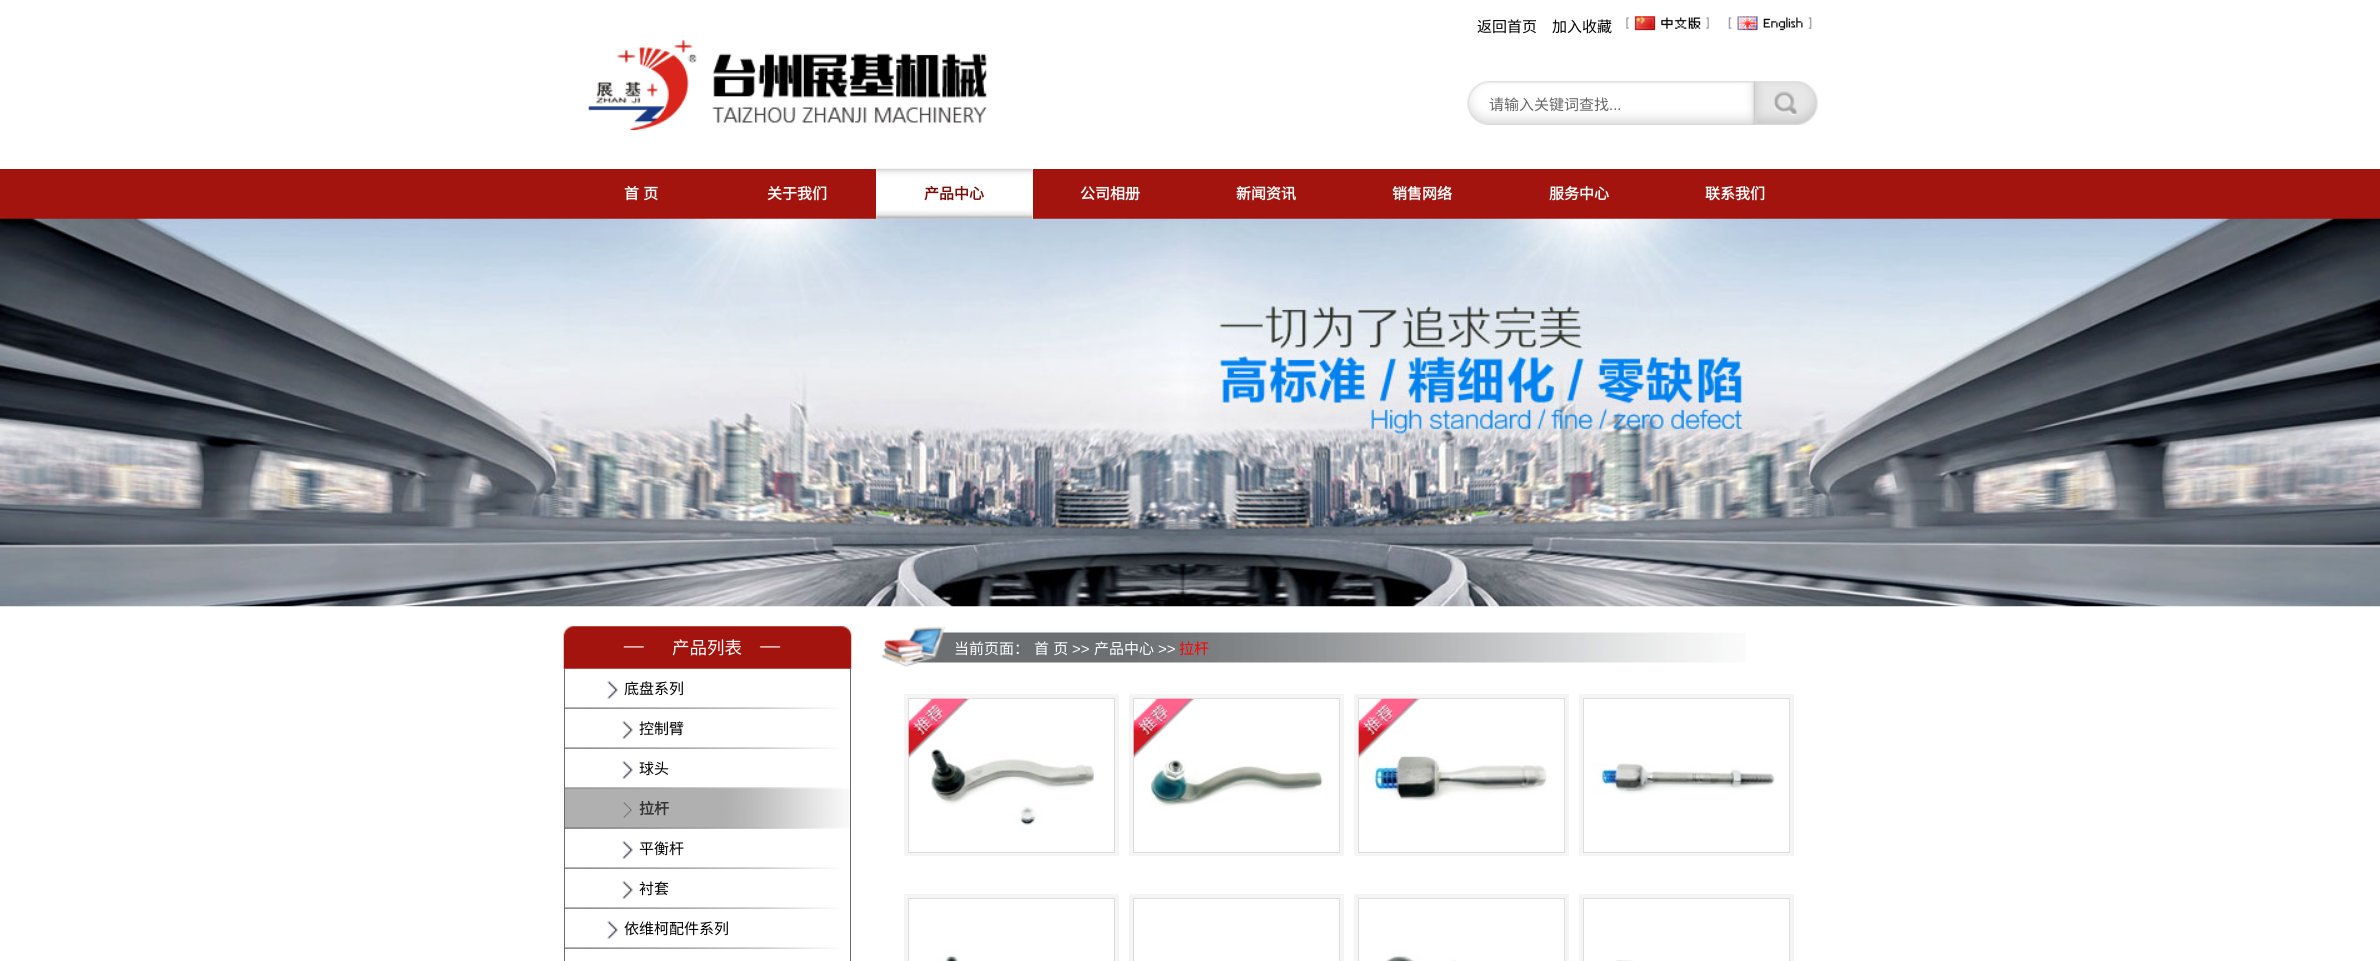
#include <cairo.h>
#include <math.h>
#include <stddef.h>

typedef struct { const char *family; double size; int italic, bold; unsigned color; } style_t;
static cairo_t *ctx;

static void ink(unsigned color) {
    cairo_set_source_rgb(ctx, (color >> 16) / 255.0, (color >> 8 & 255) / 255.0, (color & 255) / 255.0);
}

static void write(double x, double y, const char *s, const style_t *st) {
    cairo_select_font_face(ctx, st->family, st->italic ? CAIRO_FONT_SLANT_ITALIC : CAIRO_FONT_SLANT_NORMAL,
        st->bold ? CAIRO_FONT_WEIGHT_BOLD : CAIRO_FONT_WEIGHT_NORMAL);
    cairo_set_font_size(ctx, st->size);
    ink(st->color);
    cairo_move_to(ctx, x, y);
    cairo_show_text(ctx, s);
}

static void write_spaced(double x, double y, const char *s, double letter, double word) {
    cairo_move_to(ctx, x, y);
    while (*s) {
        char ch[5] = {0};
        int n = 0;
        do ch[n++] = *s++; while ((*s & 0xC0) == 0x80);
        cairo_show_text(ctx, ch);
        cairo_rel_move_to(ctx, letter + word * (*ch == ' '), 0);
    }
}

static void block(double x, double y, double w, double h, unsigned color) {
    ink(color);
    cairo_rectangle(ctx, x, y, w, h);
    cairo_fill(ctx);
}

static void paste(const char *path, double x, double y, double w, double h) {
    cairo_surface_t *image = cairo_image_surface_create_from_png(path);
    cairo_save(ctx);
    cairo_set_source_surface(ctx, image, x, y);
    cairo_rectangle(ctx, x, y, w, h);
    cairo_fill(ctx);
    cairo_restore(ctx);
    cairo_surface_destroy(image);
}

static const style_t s1 = {"Noto Sans CJK SC", 15, 0, 0, 0x000000};
static const style_t s2 = {"Noto Sans CJK SC", 15, 0, 0, 0x666666};
static const style_t s3 = {"Liberation Sans", 15, 0, 0, 0x666666};
static const style_t s4 = {"Noto Sans CJK SC", 15, 0, 1, 0xffffff};
static const style_t s5 = {"Noto Sans CJK SC", 15, 0, 1, 0x7e0c07};
static const style_t s6 = {"Noto Sans CJK SC", 17.5, 0, 0, 0xffffff};
static const style_t s7 = {"Noto Sans CJK SC", 15, 0, 1, 0x333333};
static const style_t s8 = {"Noto Sans CJK SC", 15, 0, 0, 0xffffff};
static const style_t s9 = {"Liberation Sans", 15, 0, 0, 0xffffff};
static const style_t s10 = {"Noto Sans CJK SC", 15, 0, 0, 0xff0000};

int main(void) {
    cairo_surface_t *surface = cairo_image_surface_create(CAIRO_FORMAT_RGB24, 2380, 961);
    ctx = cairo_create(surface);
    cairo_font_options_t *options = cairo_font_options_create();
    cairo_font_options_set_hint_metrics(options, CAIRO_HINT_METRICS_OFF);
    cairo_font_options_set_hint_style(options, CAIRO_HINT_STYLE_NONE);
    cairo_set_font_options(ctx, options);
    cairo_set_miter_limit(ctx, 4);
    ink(0xffffff);
    cairo_paint(ctx);
    paste("pic1.png", 588, 40, 399, 90);
    write(1477, 32, "返回首页", &s1);
    write(1552, 32, "加入收藏", &s1);
    paste("pic2.png", 1626, 16, 83, 15);
    paste("pic3.png", 1728, 16, 84, 15);
    paste("pic4.png", 1467, 81, 351, 44);
    write(1489, 110, "请输入关键词查找", &s2);
    write(1609, 110, "...", &s3);
    block(0, 169, 2380, 50, 0xa3140e);
    cairo_select_font_face(ctx, "Noto Sans CJK SC", CAIRO_FONT_SLANT_NORMAL, CAIRO_FONT_WEIGHT_BOLD);
    ink(0xffffff);
    write_spaced(624, 199, "首 页", 0, 1);
    write(767, 199, "关于我们", &s4);
    paste("pic6.png", 0, 218, 2380, 389);
    block(876, 169, 157, 50, 0xffffff);
    paste("pic5.png", 876, 168, 157, 51);
    write(924, 199, "产品中心", &s5);
    write(1080, 199, "公司相册", &s4);
    write(1236, 199, "新闻资讯", &s4);
    write(1392, 199, "销售网络", &s4);
    write(1549, 199, "服务中心", &s4);
    write(1705, 199, "联系我们", &s4);
    paste("pic7.png", 563, 626, 289, 43);
    write(672, 654, "产品列表", &s6);
    block(850, 669, 1, 292, 0x6b6b6b);
    block(564, 669, 1, 292, 0x6b6b6b);
    paste("pic8.png", 565, 681, 276, 28);
    write(624, 694, "底盘系列", &s1);
    paste("pic9.png", 565, 721, 276, 28);
    write(639, 734, "控制臂", &s1);
    paste("pic9.png", 565, 761, 276, 28);
    write(639, 774, "球头", &s1);
    paste("pic10.png", 565, 788, 285, 41);
    write(639, 814, "拉杆", &s7);
    paste("pic9.png", 565, 841, 276, 28);
    write(639, 854, "平衡杆", &s1);
    paste("pic9.png", 565, 881, 276, 28);
    write(639, 894, "衬套", &s1);
    paste("pic8.png", 565, 921, 276, 28);
    write(624, 934, "依维柯配件系列", &s1);
    paste("pic11.png", 881, 626, 865, 41);
    write(954, 654, "当前页面：", &s8);
    write_spaced(1034, 654, "首 页", 0, 1);
    write(1072, 654, ">>", &s9);
    write(1094, 654, "产品中心", &s8);
    write(1158, 654, ">>", &s9);
    write(1179, 654, "拉杆", &s10);
    block(904, 694, 215, 162, 0xf5f5f5);
    ink(0xffffff);
    cairo_rectangle(ctx, 908.5, 698.5, 206, 154);
    cairo_fill_preserve(ctx);
    ink(0xdddddd);
    cairo_set_line_width(ctx, 1);
    cairo_stroke(ctx);
    paste("pic13.png", 931, 749, 163, 77);
    paste("pic12.png", 908, 698, 61, 60);
    block(1129, 694, 215, 162, 0xf5f5f5);
    ink(0xffffff);
    cairo_rectangle(ctx, 1133.5, 698.5, 206, 154);
    cairo_fill_preserve(ctx);
    ink(0xdddddd);
    cairo_stroke(ctx);
    paste("pic14.png", 1133, 698, 61, 60);
    paste("pic15.png", 1150, 759, 173, 48);
    block(1354, 694, 215, 162, 0xf5f5f5);
    ink(0xffffff);
    cairo_rectangle(ctx, 1358.5, 698.5, 206, 154);
    cairo_fill_preserve(ctx);
    ink(0xdddddd);
    cairo_stroke(ctx);
    paste("pic17.png", 1363, 756, 184, 45);
    paste("pic16.png", 1358, 698, 61, 60);
    block(1579, 694, 215, 162, 0xf5f5f5);
    ink(0xffffff);
    cairo_rectangle(ctx, 1583.5, 698.5, 206, 154);
    cairo_fill_preserve(ctx);
    ink(0xdddddd);
    cairo_stroke(ctx);
    paste("pic18.png", 1592, 762, 183, 32);
    block(904, 894, 215, 67, 0xf5f5f5);
    ink(0xffffff);
    cairo_rectangle(ctx, 908.5, 898.5, 206, 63);
    cairo_fill_preserve(ctx);
    ink(0xdddddd);
    cairo_stroke(ctx);
    paste("pic19.png", 937, 955, 22, 6);
    block(1129, 894, 215, 67, 0xf5f5f5);
    ink(0xffffff);
    cairo_rectangle(ctx, 1133.5, 898.5, 206, 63);
    cairo_fill_preserve(ctx);
    ink(0xdddddd);
    cairo_stroke(ctx);
    block(1354, 894, 215, 67, 0xf5f5f5);
    ink(0xffffff);
    cairo_rectangle(ctx, 1358.5, 898.5, 206, 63);
    cairo_fill_preserve(ctx);
    ink(0xdddddd);
    cairo_stroke(ctx);
    paste("pic20.png", 1386, 955, 71, 6);
    block(1579, 894, 215, 67, 0xf5f5f5);
    ink(0xffffff);
    cairo_rectangle(ctx, 1583.5, 898.5, 206, 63);
    cairo_fill_preserve(ctx);
    ink(0xdddddd);
    cairo_stroke(ctx);
    paste("pic21.png", 1616, 960, 18, 1);
    cairo_surface_write_to_png(surface, "screenshot.png");
    cairo_font_options_destroy(options);
    cairo_destroy(ctx);
    cairo_surface_destroy(surface);
    return 0;
}
